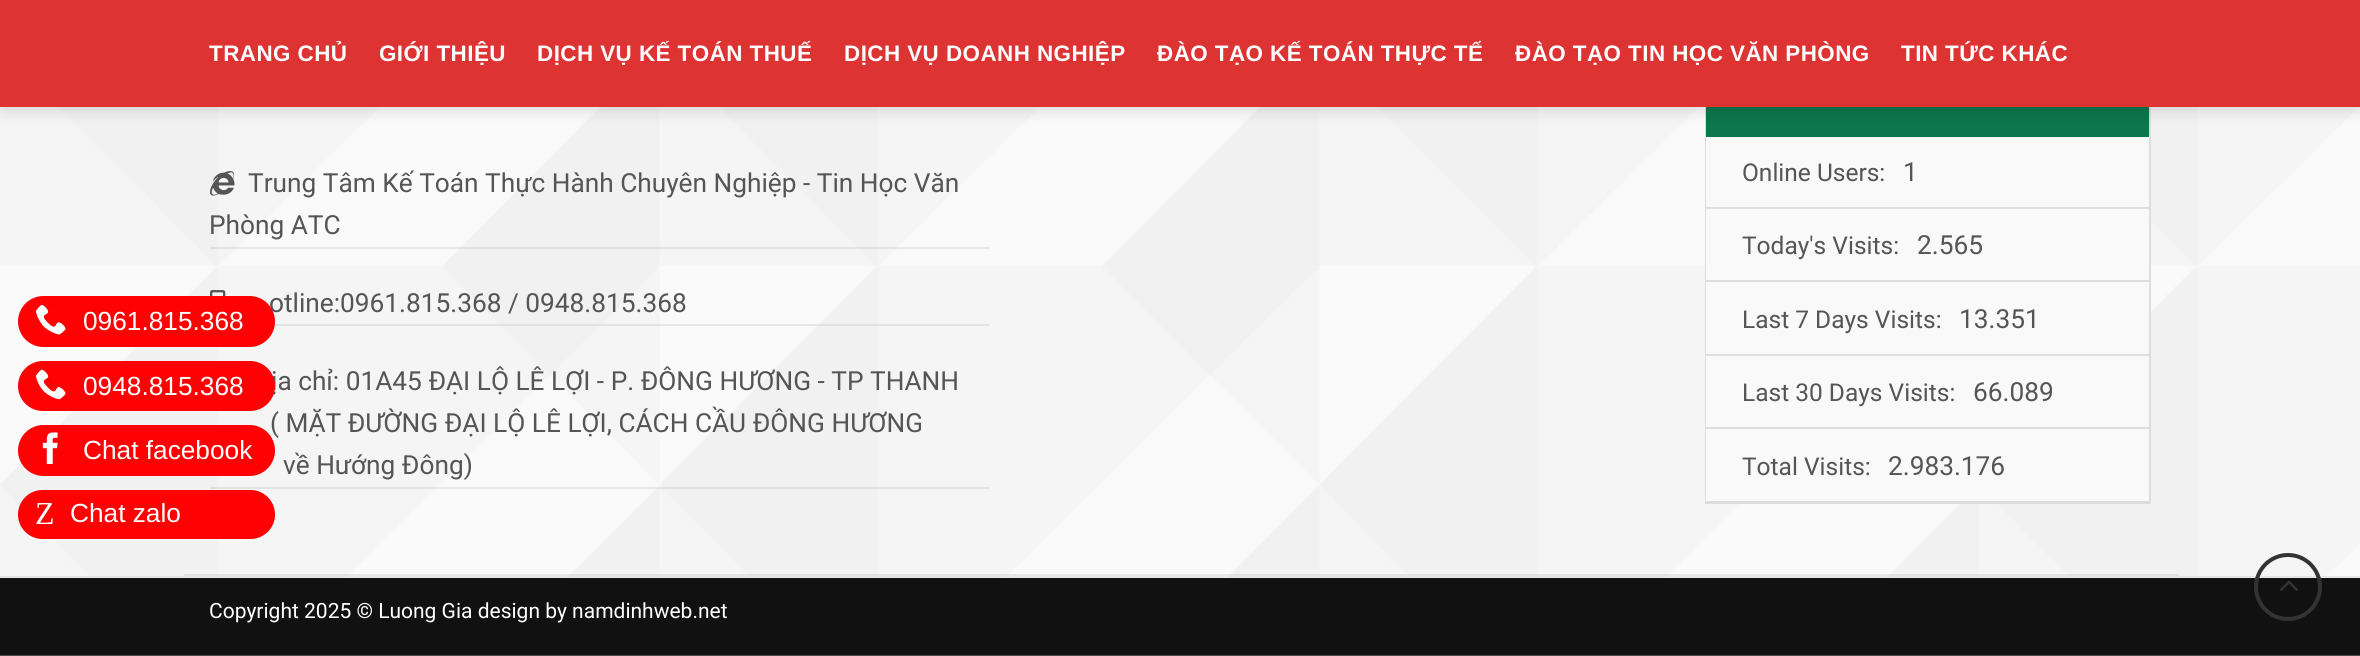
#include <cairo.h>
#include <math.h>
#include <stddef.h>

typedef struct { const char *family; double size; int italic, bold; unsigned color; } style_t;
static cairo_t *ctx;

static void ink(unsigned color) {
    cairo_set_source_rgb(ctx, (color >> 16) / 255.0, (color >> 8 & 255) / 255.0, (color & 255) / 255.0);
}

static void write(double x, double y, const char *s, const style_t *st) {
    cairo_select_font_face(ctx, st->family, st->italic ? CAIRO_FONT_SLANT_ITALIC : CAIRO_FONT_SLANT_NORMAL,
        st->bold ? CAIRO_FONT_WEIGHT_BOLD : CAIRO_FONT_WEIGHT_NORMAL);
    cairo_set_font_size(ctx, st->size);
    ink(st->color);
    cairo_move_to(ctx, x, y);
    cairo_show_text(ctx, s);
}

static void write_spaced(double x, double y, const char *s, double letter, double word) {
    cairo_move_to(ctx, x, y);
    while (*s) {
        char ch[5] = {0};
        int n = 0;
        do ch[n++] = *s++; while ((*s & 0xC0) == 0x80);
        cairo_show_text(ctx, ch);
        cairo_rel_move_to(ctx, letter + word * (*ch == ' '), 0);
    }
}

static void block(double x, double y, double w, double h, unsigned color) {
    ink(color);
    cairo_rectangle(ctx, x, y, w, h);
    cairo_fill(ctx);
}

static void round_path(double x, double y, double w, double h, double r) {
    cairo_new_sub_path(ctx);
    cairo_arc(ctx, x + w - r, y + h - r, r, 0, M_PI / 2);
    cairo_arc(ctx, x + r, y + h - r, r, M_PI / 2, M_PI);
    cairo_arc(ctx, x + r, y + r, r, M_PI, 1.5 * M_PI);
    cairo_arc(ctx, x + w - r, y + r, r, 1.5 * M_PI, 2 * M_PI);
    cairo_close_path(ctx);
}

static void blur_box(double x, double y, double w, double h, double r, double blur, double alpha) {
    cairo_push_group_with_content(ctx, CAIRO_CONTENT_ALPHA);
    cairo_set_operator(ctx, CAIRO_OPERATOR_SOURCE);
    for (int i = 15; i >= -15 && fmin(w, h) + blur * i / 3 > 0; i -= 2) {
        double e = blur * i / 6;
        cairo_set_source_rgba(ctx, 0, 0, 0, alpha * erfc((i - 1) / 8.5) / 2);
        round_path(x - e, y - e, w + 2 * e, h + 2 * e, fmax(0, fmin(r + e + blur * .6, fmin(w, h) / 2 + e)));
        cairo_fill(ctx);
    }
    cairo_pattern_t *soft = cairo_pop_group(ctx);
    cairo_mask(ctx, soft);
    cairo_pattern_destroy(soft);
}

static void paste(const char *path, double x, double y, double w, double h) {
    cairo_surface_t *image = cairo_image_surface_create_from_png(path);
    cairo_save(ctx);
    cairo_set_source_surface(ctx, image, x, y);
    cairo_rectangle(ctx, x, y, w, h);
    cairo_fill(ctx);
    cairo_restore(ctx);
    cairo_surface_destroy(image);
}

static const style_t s1 = {"Roboto", 26.25, 0, 0, 0x555555};
static const style_t s2 = {"Liberation Sans", 26.25, 0, 0, 0xffffff};
static const style_t s3 = {"Liberation Serif", 32, 0, 0, 0xffffff};
static const style_t s4 = {"Roboto", 24.5, 0, 0, 0x555555};
static const style_t s5 = {"Roboto", 21, 0, 0, 0xffffff};

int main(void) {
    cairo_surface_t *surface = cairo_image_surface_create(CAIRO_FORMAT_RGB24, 2360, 656);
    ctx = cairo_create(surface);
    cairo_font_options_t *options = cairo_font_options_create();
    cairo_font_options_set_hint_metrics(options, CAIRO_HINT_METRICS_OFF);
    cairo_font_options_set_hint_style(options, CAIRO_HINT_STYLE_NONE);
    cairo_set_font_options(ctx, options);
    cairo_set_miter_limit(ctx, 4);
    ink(0xffffff);
    cairo_paint(ctx);
    paste("pic4.png", 0, 107, 2360, 470);
    cairo_set_source_rgba(ctx, 0.757, 0.757, 0.757, 0.33);
    cairo_rectangle(ctx, 274, 324, 715, 2);
    cairo_fill(ctx);
    write(269, 312, "otline:0961.815.368 / 0948.815.368", &s1);
    ink(0xff0102);
    round_path(18, 296, 257, 51, 25.5);
    cairo_fill(ctx);
    paste("pic1.png", 36, 305, 30, 30);
    write(83, 330, "0961.815.368", &s2);
    write(271, 390, "ịa chỉ: 01A45 ĐẠI LỘ LÊ LỢI - P. ĐÔNG HƯƠNG - TP THANH", &s1);
    write(270, 432, "( MẶT ĐƯỜNG ĐẠI LỘ LÊ LỢI, CÁCH CẦU ĐÔNG HƯƠNG", &s1);
    ink(0xff0102);
    round_path(18, 361, 257, 50, 25);
    cairo_fill(ctx);
    paste("pic2.png", 36, 369, 30, 31);
    write(83, 395, "0948.815.368", &s2);
    ink(0xff0102);
    round_path(18, 425, 257, 51, 25.5);
    cairo_fill(ctx);
    paste("pic3.png", 42, 432, 16, 32);
    write(83, 459, "Chat facebook", &s2);
    ink(0xff0102);
    round_path(18, 490, 257, 49, 24.5);
    cairo_fill(ctx);
    write(35, 524, "Z", &s3);
    write(70, 522, "Chat zalo", &s2);
    cairo_rectangle(ctx, 1706, 66, 444, 437);
    ink(0xdddddd);
    cairo_stroke(ctx);
    block(1706, 107, 443, 30, 0x0d764b);
    ink(0x000000);
    blur_box(2, 2, 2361, 107, 0, 9, 0.15);
    block(0, 0, 2360, 107, 0xdd3333);
    cairo_select_font_face(ctx, "Liberation Sans", CAIRO_FONT_SLANT_NORMAL, CAIRO_FONT_WEIGHT_BOLD);
    cairo_set_font_size(ctx, 22.4);
    ink(0xffffff);
    write_spaced(209, 61, "TRANG CHỦ", 0.45, 0);
    write_spaced(379, 61, "GIỚI THIỆU", 0.45, 0);
    write_spaced(537, 61, "DỊCH VỤ KẾ TOÁN THUẾ", 0.45, 0);
    write_spaced(844, 61, "DỊCH VỤ DOANH NGHIỆP", 0.45, 0);
    write_spaced(1157, 61, "ĐÀO TẠO KẾ TOÁN THỰC TẾ", 0.45, 0);
    write_spaced(1515, 61, "ĐÀO TẠO TIN HỌC VĂN PHÒNG", 0.45, 0);
    write_spaced(1901, 61, "TIN TỨC KHÁC", 0.45, 0);
    cairo_set_source_rgba(ctx, 0.757, 0.757, 0.757, 0.33);
    cairo_rectangle(ctx, 0, 576, 2360, 2);
    cairo_fill(ctx);
    cairo_rectangle(ctx, 184, 574, 1995, 2);
    cairo_fill(ctx);
    cairo_rectangle(ctx, 210, 247, 779, 2);
    cairo_fill(ctx);
    paste("pic5.png", 210, 171, 25, 25);
    write(248, 192, "Trung Tâm Kế Toán Thực Hành Chuyên Nghiệp - Tin Học Văn", &s1);
    write(209, 234, "Phòng ATC", &s1);
    paste("pic6.png", 210, 290, 16, 6);
    cairo_set_source_rgba(ctx, 0.757, 0.757, 0.757, 0.33);
    cairo_rectangle(ctx, 210, 487, 779, 2);
    cairo_fill(ctx);
    write(283, 474, "về Hướng Đông)", &s1);
    block(1706, 137, 443, 364, 0xf9f9f9);
    block(1706, 207, 443, 2, 0xdddddd);
    write(1742, 181, "Online Users:", &s4);
    write(1903, 181, "1", &s1);
    cairo_set_source_rgba(ctx, 1, 1, 1, 0.08);
    cairo_rectangle(ctx, 1706, 208, 443, 1);
    cairo_fill(ctx);
    block(1706, 280, 443, 2, 0xdddddd);
    write(1742, 254, "Today's Visits:", &s4);
    write(1917, 254, "2.565", &s1);
    block(1706, 354, 443, 2, 0xdddddd);
    write(1742, 328, "Last 7 Days Visits:", &s4);
    write(1959, 328, "13.351", &s1);
    cairo_set_source_rgba(ctx, 1, 1, 1, 0.08);
    cairo_rectangle(ctx, 1706, 355, 443, 1);
    cairo_fill(ctx);
    block(1706, 427, 443, 2, 0xdddddd);
    write(1742, 401, "Last 30 Days Visits:", &s4);
    write(1973, 401, "66.089", &s1);
    block(1706, 501, 443, 1, 0xdddddd);
    write(1742, 475, "Total Visits:", &s4);
    write(1888, 475, "2.983.176", &s1);
    block(0, 578, 2360, 77, 0x111111);
    block(0, 655, 2360, 1, 0x4b4b4b);
    write(209, 618, "Copyright 2025 © Luong Gia design by namdinhweb.net", &s5);
    cairo_new_path(ctx);
    cairo_arc(ctx, 2288, 587, 32, 0, 2 * M_PI);
    ink(0x333333);
    cairo_set_line_width(ctx, 4);
    cairo_stroke(ctx);
    paste("pic7.png", 2280, 580, 18, 11);
    cairo_surface_write_to_png(surface, "screenshot.png");
    cairo_font_options_destroy(options);
    cairo_destroy(ctx);
    cairo_surface_destroy(surface);
    return 0;
}
